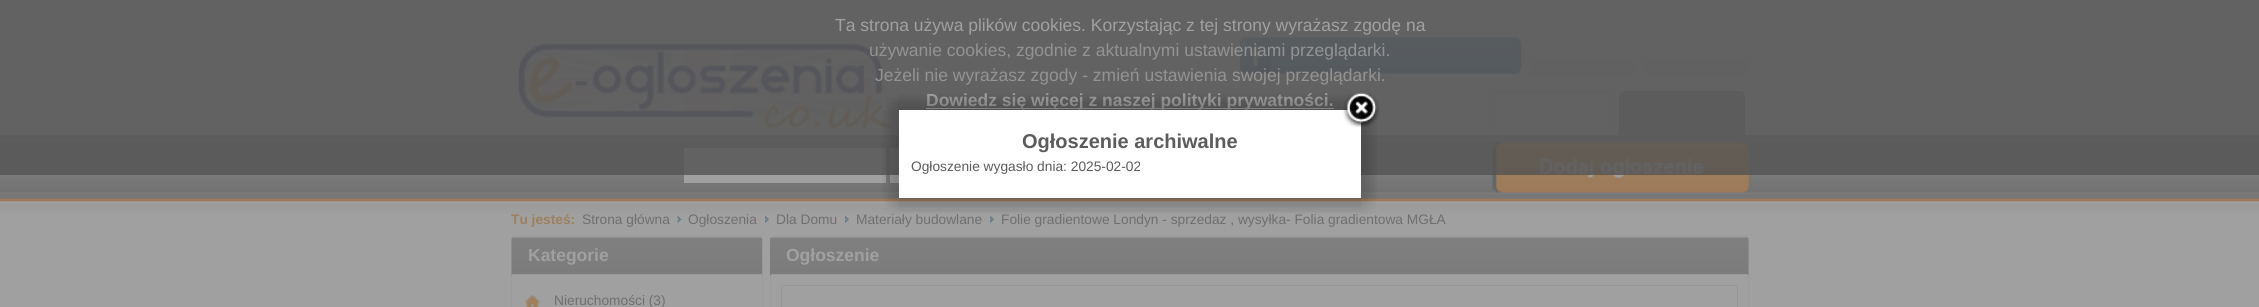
#include <cairo.h>
#include <math.h>
#include <stddef.h>

typedef struct { const char *family; double size; int italic, bold; unsigned color; } style_t;
static cairo_t *ctx;

static void ink(unsigned color) {
    cairo_set_source_rgb(ctx, (color >> 16) / 255.0, (color >> 8 & 255) / 255.0, (color & 255) / 255.0);
}

static void write(double x, double y, const char *s, const style_t *st) {
    cairo_select_font_face(ctx, st->family, st->italic ? CAIRO_FONT_SLANT_ITALIC : CAIRO_FONT_SLANT_NORMAL,
        st->bold ? CAIRO_FONT_WEIGHT_BOLD : CAIRO_FONT_WEIGHT_NORMAL);
    cairo_set_font_size(ctx, st->size);
    ink(st->color);
    cairo_move_to(ctx, x, y);
    cairo_show_text(ctx, s);
}

static void block(double x, double y, double w, double h, unsigned color) {
    ink(color);
    cairo_rectangle(ctx, x, y, w, h);
    cairo_fill(ctx);
}

static void round_path(double x, double y, double w, double h, double r) {
    cairo_new_sub_path(ctx);
    cairo_arc(ctx, x + w - r, y + h - r, r, 0, M_PI / 2);
    cairo_arc(ctx, x + r, y + h - r, r, M_PI / 2, M_PI);
    cairo_arc(ctx, x + r, y + r, r, M_PI, 1.5 * M_PI);
    cairo_arc(ctx, x + w - r, y + r, r, 1.5 * M_PI, 2 * M_PI);
    cairo_close_path(ctx);
}

static void paste(const char *path, double x, double y, double w, double h) {
    cairo_surface_t *image = cairo_image_surface_create_from_png(path);
    cairo_save(ctx);
    cairo_set_source_surface(ctx, image, x, y);
    cairo_rectangle(ctx, x, y, w, h);
    cairo_fill(ctx);
    cairo_restore(ctx);
    cairo_surface_destroy(image);
}

static const style_t s1 = {"Liberation Sans", 17.5, 0, 0, 0xa0a0a0};
static const style_t s2 = {"Liberation Sans", 17.5, 0, 0, 0x939394};
static const style_t s3 = {"Liberation Sans", 17.5, 0, 1, 0xa0a0a0};
static const style_t s4 = {"Liberation Sans", 20, 0, 1, 0x5c5c5c};
static const style_t s5 = {"Liberation Sans", 13.75, 0, 0, 0x5c5c5c};
static const style_t s6 = {"Liberation Sans", 13.75, 0, 1, 0x9d805c};
static const style_t s7 = {"Liberation Sans", 13.75, 0, 0, 0x6f6f6f};

int main(void) {
    cairo_surface_t *surface = cairo_image_surface_create(CAIRO_FORMAT_RGB24, 2259, 307);
    ctx = cairo_create(surface);
    cairo_font_options_t *options = cairo_font_options_create();
    cairo_font_options_set_hint_metrics(options, CAIRO_HINT_METRICS_OFF);
    cairo_font_options_set_hint_style(options, CAIRO_HINT_STYLE_NONE);
    cairo_set_font_options(ctx, options);
    cairo_set_miter_limit(ctx, 4);
    cairo_pattern_t *gradient;
    ink(0xa0a0a0);
    cairo_paint(ctx);
    paste("pic1.png", 0, 127, 2259, 87);
    paste("pic11.png", 511, 42, 388, 93);
    paste("pic12.png", 1240, 37, 282, 37);
    gradient = cairo_pattern_create_linear(1583, 40, 1583, 75);
    cairo_pattern_add_color_stop_rgba(gradient, 0, 0.627, 0.627, 0.627, 1);
    cairo_pattern_add_color_stop_rgba(gradient, 1, 0.612, 0.612, 0.612, 1);
    cairo_set_source(ctx, gradient);
    cairo_pattern_destroy(gradient);
    cairo_rectangle(ctx, 1530, 62, 105, 13);
    cairo_fill(ctx);
    gradient = cairo_pattern_create_linear(1696, 39, 1696, 74);
    cairo_pattern_add_color_stop_rgba(gradient, 0, 0.627, 0.627, 0.627, 1);
    cairo_pattern_add_color_stop_rgba(gradient, 1, 0.612, 0.612, 0.612, 1);
    cairo_set_source(ctx, gradient);
    cairo_pattern_destroy(gradient);
    cairo_rectangle(ctx, 1644, 61, 105, 13);
    cairo_fill(ctx);
    ink(0x9a9a9a);
    cairo_set_fill_rule(ctx, CAIRO_FILL_RULE_EVEN_ODD);
    cairo_new_path(ctx);
    cairo_move_to(ctx, 1494, 91);
    cairo_line_to(ctx, 1610, 91);
    cairo_curve_to(ctx, 1613, 91, 1615, 93, 1615, 96);
    cairo_line_to(ctx, 1615, 132);
    cairo_line_to(ctx, 1489, 132);
    cairo_line_to(ctx, 1489, 96);
    cairo_curve_to(ctx, 1489, 93, 1491, 91, 1494, 91);
    cairo_close_path(ctx);
    cairo_move_to(ctx, 1494, 94);
    cairo_line_to(ctx, 1610, 94);
    cairo_curve_to(ctx, 1611, 94, 1612, 95, 1612, 96);
    cairo_line_to(ctx, 1612, 132);
    cairo_line_to(ctx, 1491, 132);
    cairo_line_to(ctx, 1491, 96);
    cairo_curve_to(ctx, 1491, 95, 1492, 94, 1494, 94);
    cairo_close_path(ctx);
    cairo_fill(ctx);
    ink(0x828282);
    cairo_new_path(ctx);
    cairo_move_to(ctx, 1624, 92.5);
    cairo_line_to(ctx, 1740, 92.5);
    cairo_curve_to(ctx, 1742, 92.5, 1743.5, 94, 1743.5, 96);
    cairo_line_to(ctx, 1743.5, 133.5);
    cairo_line_to(ctx, 1620.5, 133.5);
    cairo_line_to(ctx, 1620.5, 96);
    cairo_curve_to(ctx, 1620.5, 94, 1622, 92.5, 1624, 92.5);
    cairo_close_path(ctx);
    cairo_fill_preserve(ctx);
    cairo_set_line_width(ctx, 3);
    cairo_stroke(ctx);
    block(684, 148, 202, 35, 0xa0a0a0);
    block(890, 148, 9, 35, 0xa0a0a0);
    paste("pic13.png", 1492, 142, 257, 51);
    cairo_set_source_rgba(ctx, 0.325, 0.325, 0.325, 0.8);
    cairo_rectangle(ctx, 0, 0, 2259, 175);
    cairo_fill(ctx);
    write(835, 31, "Ta strona używa plików cookies. Korzystając z tej strony wyrażasz zgodę na", &s1);
    write(869, 56, "używanie cookies, zgodnie z aktualnymi ustawieniami przeglądarki.", &s2);
    write(875, 81, "Jeżeli nie wyrażasz zgody - zmień ustawienia swojej przeglądarki.", &s2);
    block(926, 108, 408, 1, 0xa0a0a0);
    write(926, 106, "Dowiedz się więcej z naszej polityki prywatności.", &s3);
    block(912, 123, 436, 62, 0xffffff);
    paste("pic4.png", 898, 94, 464, 16);
    paste("pic5.png", 1361, 97, 14, 13);
    paste("pic7.png", 1361, 110, 16, 88);
    paste("pic10.png", 1361, 197, 15, 17);
    paste("pic9.png", 898, 197, 464, 16);
    cairo_rectangle(ctx, 905.5, 116.5, 449, 75);
    cairo_set_line_width(ctx, 13);
    cairo_stroke(ctx);
    paste("pic2.png", 1343, 92, 37, 36);
    paste("pic3.png", 885, 97, 14, 13);
    paste("pic8.png", 884, 197, 15, 17);
    paste("pic6.png", 882, 110, 17, 88);
    write(1022, 148, "Ogłoszenie archiwalne", &s4);
    write(911, 171, "Ogłoszenie wygasło dnia: 2025-02-02", &s5);
    write(511, 224, "Tu jesteś:", &s6);
    write(582, 224, "Strona główna", &s7);
    paste("pic14.png", 677, 216, 5, 7);
    write(688, 224, "Ogłoszenia", &s7);
    paste("pic15.png", 765, 216, 4, 7);
    write(776, 224, "Dla Domu", &s7);
    paste("pic16.png", 845, 216, 4, 7);
    write(856, 224, "Materiały budowlane", &s7);
    paste("pic15.png", 990, 216, 4, 7);
    write(1001, 224, "Folie gradientowe Londyn - sprzedaz , wysyłka- Folia gradientowa MGŁA", &s7);
    block(514, 235, 247, 2, 0x9d9d9d);
    paste("pic17.png", 511, 237, 252, 40);
    write(528, 261, "Kategorie", &s3);
    round_path(511.5, 274.5, 251, 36, 2);
    cairo_fill_preserve(ctx);
    ink(0x9b9b9b);
    cairo_set_line_width(ctx, 1);
    cairo_stroke(ctx);
    paste("pic18.png", 525, 294, 16, 13);
    write(554, 305, "Nieruchomości (3)", &s7);
    block(773, 235, 975, 2, 0x9d9d9d);
    paste("pic19.png", 770, 237, 979, 40);
    write(786, 261, "Ogłoszenie", &s3);
    round_path(770.5, 274.5, 978, 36, 2);
    cairo_fill_preserve(ctx);
    ink(0x9b9b9b);
    cairo_stroke(ctx);
    round_path(781.5, 285.5, 956, 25, 2);
    ink(0x979797);
    cairo_stroke(ctx);
    cairo_surface_write_to_png(surface, "screenshot.png");
    cairo_font_options_destroy(options);
    cairo_destroy(ctx);
    cairo_surface_destroy(surface);
    return 0;
}
